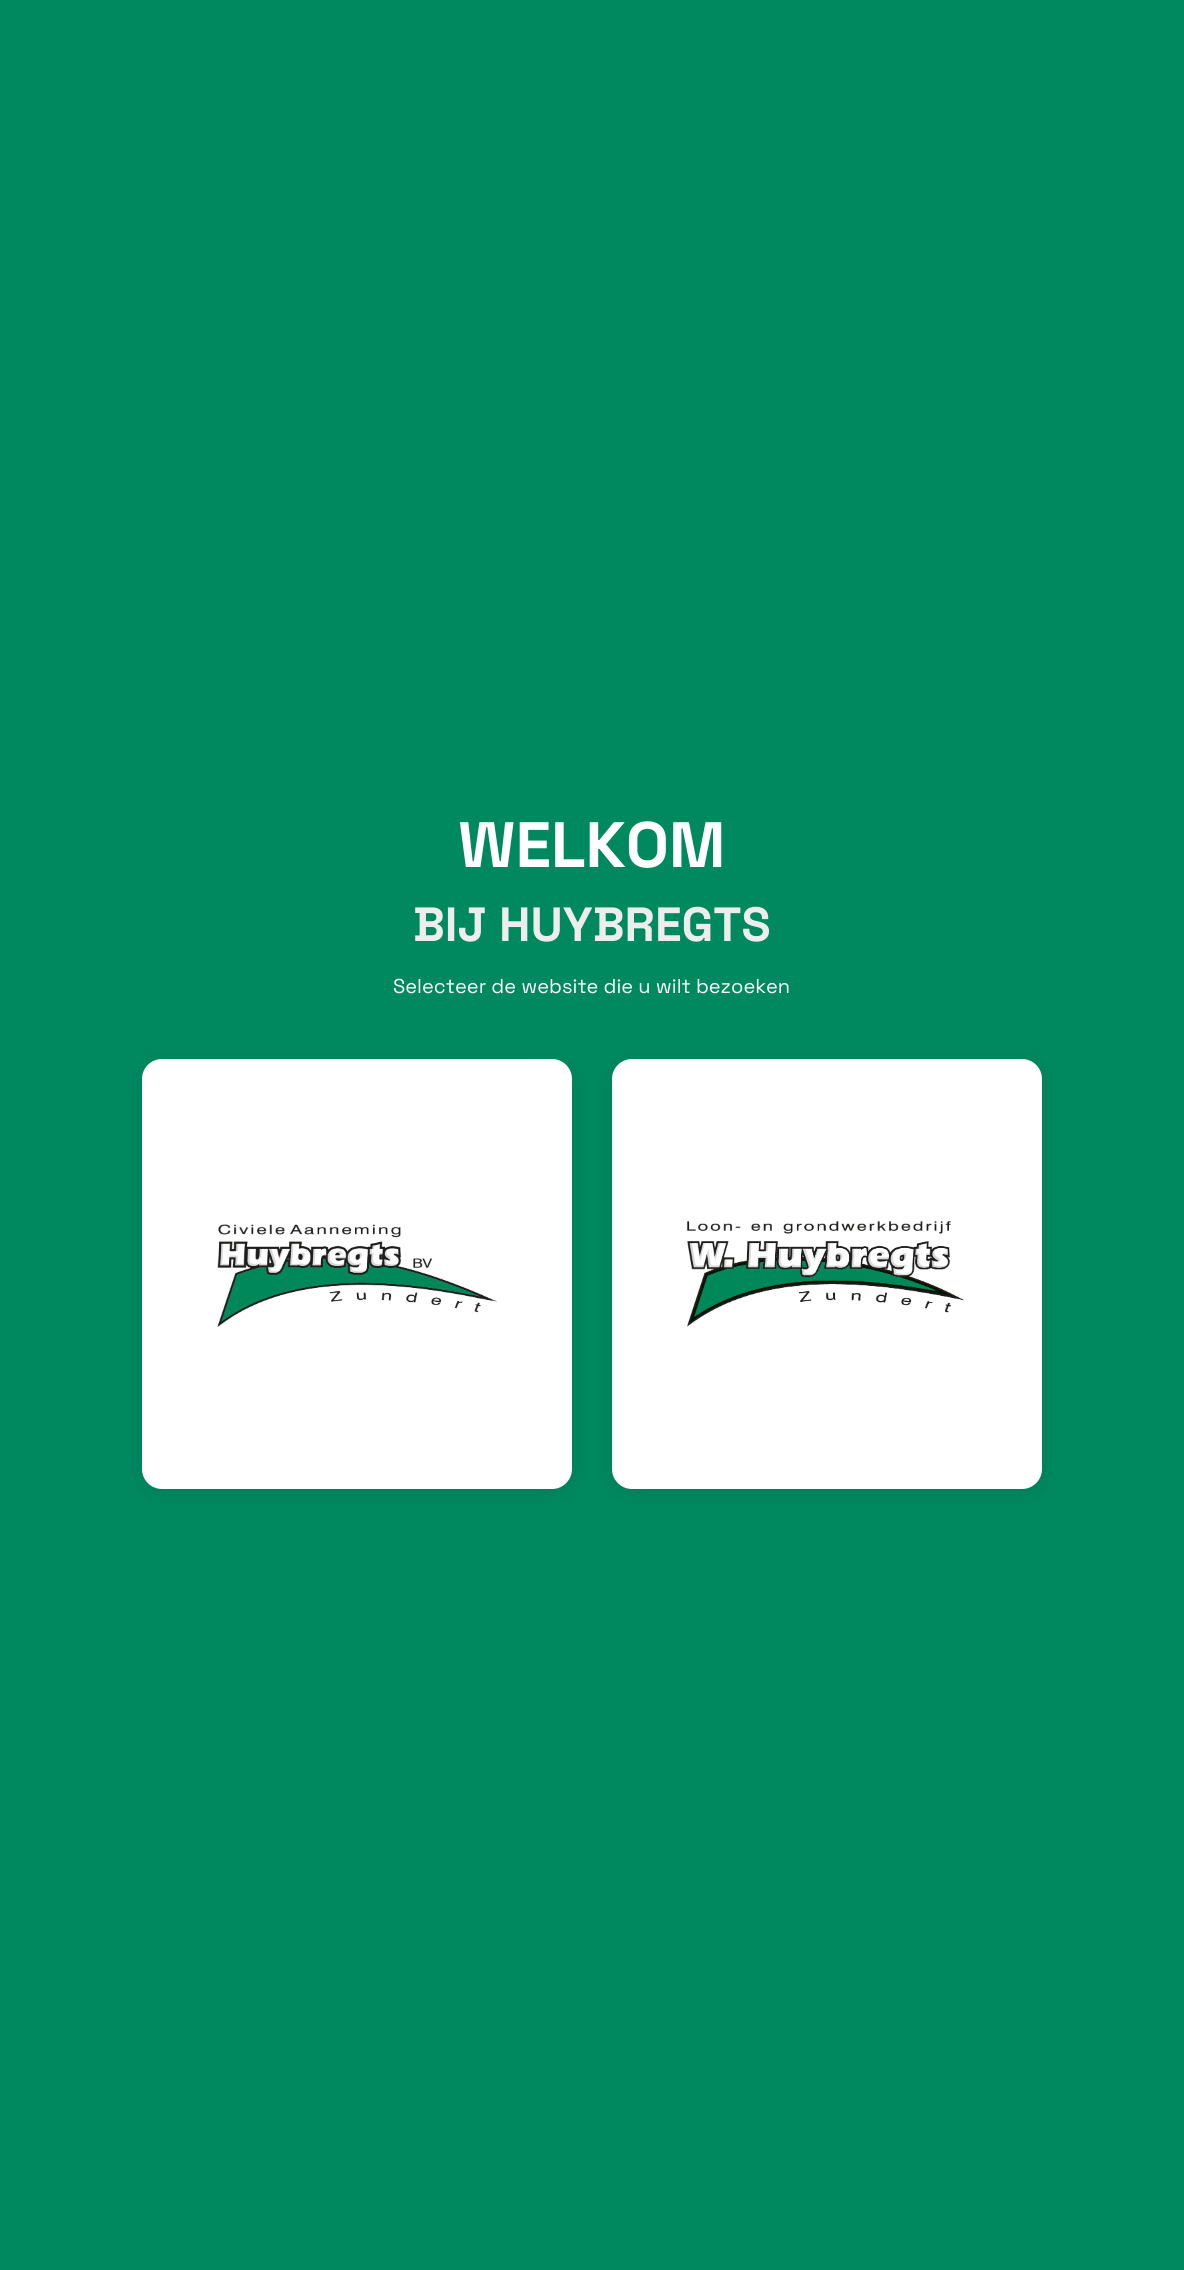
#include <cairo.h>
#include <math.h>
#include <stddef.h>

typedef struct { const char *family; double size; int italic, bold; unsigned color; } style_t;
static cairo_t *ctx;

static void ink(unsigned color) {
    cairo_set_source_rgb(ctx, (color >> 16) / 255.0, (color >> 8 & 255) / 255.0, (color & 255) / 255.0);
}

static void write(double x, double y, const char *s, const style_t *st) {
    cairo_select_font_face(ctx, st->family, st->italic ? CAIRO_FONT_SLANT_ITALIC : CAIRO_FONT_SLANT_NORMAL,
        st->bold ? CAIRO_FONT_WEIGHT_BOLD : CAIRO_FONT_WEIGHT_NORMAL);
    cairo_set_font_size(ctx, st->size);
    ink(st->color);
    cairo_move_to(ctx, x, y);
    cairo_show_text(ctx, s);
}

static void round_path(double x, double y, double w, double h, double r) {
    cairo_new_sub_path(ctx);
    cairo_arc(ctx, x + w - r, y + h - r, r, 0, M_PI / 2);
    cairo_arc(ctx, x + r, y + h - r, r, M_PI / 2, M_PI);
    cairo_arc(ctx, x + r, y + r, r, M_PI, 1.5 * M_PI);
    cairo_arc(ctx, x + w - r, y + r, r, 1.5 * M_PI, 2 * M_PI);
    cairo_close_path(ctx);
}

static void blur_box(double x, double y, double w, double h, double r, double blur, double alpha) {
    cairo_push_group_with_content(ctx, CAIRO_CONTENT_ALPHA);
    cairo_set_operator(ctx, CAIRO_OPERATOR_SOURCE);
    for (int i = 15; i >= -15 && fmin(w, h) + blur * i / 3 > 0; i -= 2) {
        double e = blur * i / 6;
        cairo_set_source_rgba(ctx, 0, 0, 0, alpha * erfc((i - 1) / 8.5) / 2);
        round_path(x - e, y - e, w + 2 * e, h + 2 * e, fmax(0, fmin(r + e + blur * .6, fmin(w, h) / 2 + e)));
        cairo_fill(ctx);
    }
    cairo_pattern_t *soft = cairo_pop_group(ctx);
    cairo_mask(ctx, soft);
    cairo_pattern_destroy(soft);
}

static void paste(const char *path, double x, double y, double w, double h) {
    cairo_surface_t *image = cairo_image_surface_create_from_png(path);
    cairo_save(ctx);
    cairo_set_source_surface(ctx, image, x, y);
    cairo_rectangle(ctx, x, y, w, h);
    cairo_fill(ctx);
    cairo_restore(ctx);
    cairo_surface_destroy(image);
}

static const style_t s1 = {"Space Grotesk", 64, 0, 1, 0xffffff};
static const style_t s2 = {"Space Grotesk", 48, 0, 1, 0xededed};
static const style_t s3 = {"Space Grotesk", 20, 0, 0, 0xffffff};

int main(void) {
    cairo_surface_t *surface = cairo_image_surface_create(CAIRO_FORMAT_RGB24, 1184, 2270);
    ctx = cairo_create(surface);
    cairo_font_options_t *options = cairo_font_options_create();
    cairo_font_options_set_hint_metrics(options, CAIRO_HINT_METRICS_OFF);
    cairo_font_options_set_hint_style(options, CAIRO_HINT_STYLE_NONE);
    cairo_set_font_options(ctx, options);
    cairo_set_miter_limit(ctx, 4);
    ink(0x00885e);
    cairo_paint(ctx);
    write(458, 867, "WELKOM", &s1);
    write(413, 941, "BIJ HUYBREGTS", &s2);
    write(393, 993, "Selecteer de website die u wilt bezoeken", &s3);
    ink(0x000000);
    blur_box(142, 1063, 430, 430, 20, 10, 0.08);
    ink(0xffffff);
    round_path(142, 1059, 430, 430, 20);
    cairo_fill(ctx);
    paste("pic1.png", 217, 1224, 280, 103);
    ink(0x000000);
    blur_box(612, 1063, 430, 430, 20, 10, 0.08);
    ink(0xffffff);
    round_path(612, 1059, 430, 430, 20);
    cairo_fill(ctx);
    paste("pic2.png", 687, 1221, 277, 106);
    cairo_surface_write_to_png(surface, "screenshot.png");
    cairo_font_options_destroy(options);
    cairo_destroy(ctx);
    cairo_surface_destroy(surface);
    return 0;
}
